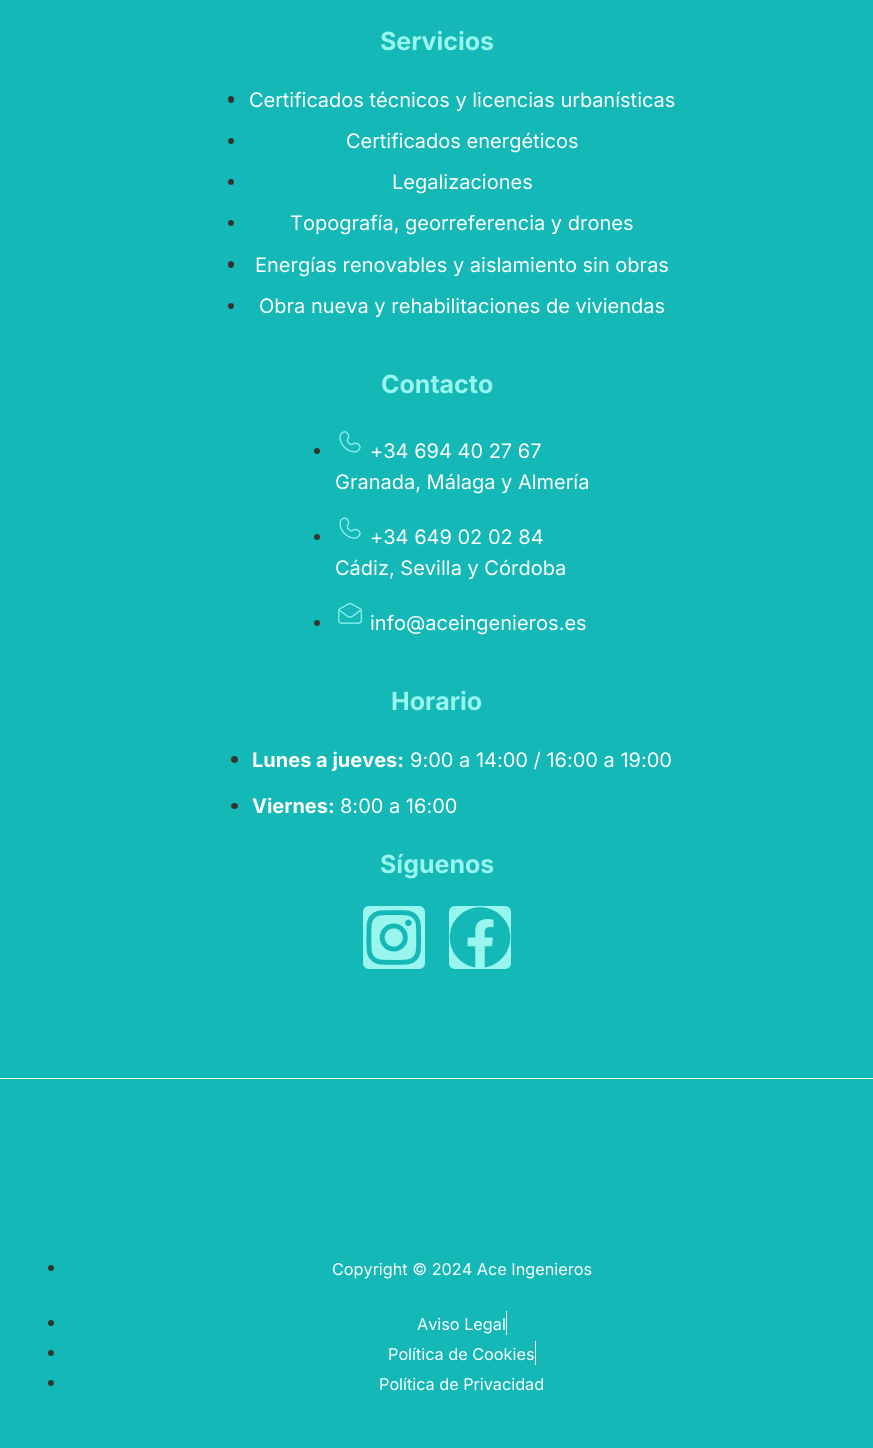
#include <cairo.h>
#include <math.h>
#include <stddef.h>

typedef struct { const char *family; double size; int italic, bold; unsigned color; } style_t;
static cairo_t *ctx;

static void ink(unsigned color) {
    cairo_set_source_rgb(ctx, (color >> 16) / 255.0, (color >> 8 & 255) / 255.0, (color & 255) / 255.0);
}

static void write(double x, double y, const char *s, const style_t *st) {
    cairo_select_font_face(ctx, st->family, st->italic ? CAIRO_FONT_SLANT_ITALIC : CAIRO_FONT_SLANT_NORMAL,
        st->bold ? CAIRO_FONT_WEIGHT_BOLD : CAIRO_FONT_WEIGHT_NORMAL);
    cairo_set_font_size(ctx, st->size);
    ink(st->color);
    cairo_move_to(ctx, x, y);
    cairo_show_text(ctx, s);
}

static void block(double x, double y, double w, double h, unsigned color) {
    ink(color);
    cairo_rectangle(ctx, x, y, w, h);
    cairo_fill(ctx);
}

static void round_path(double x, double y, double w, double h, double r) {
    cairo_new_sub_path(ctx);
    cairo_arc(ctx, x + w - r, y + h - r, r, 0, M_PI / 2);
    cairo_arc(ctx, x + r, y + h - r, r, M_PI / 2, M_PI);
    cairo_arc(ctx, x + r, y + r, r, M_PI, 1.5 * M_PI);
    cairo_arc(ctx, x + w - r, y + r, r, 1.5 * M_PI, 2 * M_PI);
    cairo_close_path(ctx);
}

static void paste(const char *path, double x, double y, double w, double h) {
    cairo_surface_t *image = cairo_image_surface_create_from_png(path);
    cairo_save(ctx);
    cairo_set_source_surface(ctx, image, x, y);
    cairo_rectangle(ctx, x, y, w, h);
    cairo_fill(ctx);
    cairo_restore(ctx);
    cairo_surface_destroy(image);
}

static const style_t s1 = {"Inter", 25, 0, 1, 0x99f6ee};
static const style_t s2 = {"Inter", 20, 0, 0, 0xffffff};
static const style_t s3 = {"Inter", 20, 0, 1, 0xffffff};
static const style_t s4 = {"Inter", 16.25, 0, 0, 0xffffff};

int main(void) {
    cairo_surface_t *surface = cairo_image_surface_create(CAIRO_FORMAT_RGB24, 873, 1448);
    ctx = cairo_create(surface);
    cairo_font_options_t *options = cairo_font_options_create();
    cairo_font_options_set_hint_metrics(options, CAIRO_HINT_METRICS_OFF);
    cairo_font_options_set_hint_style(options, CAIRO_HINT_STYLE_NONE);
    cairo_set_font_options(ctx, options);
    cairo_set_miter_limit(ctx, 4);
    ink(0x14b8b7);
    cairo_paint(ctx);
    write(380, 50, "Servicios", &s1);
    ink(0x333333);
    round_path(228, 96, 6, 7, 3);
    cairo_fill(ctx);
    write(249, 107, "Certificados técnicos y licencias urbanísticas", &s2);
    ink(0x333333);
    cairo_new_path(ctx);
    cairo_arc(ctx, 231, 141, 3, 0, 2 * M_PI);
    cairo_fill(ctx);
    write(346, 148, "Certificados energéticos", &s2);
    ink(0x333333);
    cairo_new_path(ctx);
    cairo_arc(ctx, 231, 182, 3, 0, 2 * M_PI);
    cairo_fill(ctx);
    write(392, 189, "Legalizaciones", &s2);
    ink(0x333333);
    cairo_new_path(ctx);
    cairo_arc(ctx, 231, 223, 3, 0, 2 * M_PI);
    cairo_fill(ctx);
    write(290, 230, "Topografía, georreferencia y drones", &s2);
    ink(0x333333);
    round_path(228, 261, 6, 7, 3);
    cairo_fill(ctx);
    write(255, 272, "Energías renovables y aislamiento sin obras", &s2);
    ink(0x333333);
    cairo_new_path(ctx);
    cairo_arc(ctx, 231, 306, 3, 0, 2 * M_PI);
    cairo_fill(ctx);
    write(259, 313, "Obra nueva y rehabilitaciones de viviendas", &s2);
    write(381, 393, "Contacto", &s1);
    ink(0x333333);
    cairo_new_path(ctx);
    cairo_arc(ctx, 317, 451, 3, 0, 2 * M_PI);
    cairo_fill(ctx);
    paste("pic1.png", 339, 431, 22, 22);
    write(370, 458, "+34 694 40 27 67", &s2);
    write(335, 489, "Granada, Málaga y Almería", &s2);
    ink(0x333333);
    cairo_new_path(ctx);
    cairo_arc(ctx, 317, 537, 3, 0, 2 * M_PI);
    cairo_fill(ctx);
    paste("pic2.png", 339, 517, 22, 22);
    write(370, 544, "+34 649 02 02 84", &s2);
    write(335, 575, "Cádiz, Sevilla y Córdoba", &s2);
    ink(0x333333);
    cairo_new_path(ctx);
    cairo_arc(ctx, 317, 623, 3, 0, 2 * M_PI);
    cairo_fill(ctx);
    paste("pic3.png", 338, 602, 24, 22);
    write(370, 630, "info@aceingenieros.es", &s2);
    write(391, 710, "Horario", &s1);
    ink(0x333333);
    cairo_new_path(ctx);
    cairo_arc(ctx, 234.5, 759.5, 3.5, 0, 2 * M_PI);
    cairo_fill(ctx);
    write(252, 767, "Lunes a jueves:", &s3);
    write(410, 767, "9:00 a 14:00 / 16:00 a 19:00", &s2);
    ink(0x333333);
    round_path(231, 803, 7, 6, 3);
    cairo_fill(ctx);
    write(252, 813, "Viernes:", &s3);
    write(340, 813, "8:00 a 16:00", &s2);
    write(380, 873, "Síguenos", &s1);
    round_path(363, 906, 62, 63, 6);
    cairo_fill(ctx);
    paste("pic4.png", 366, 910, 56, 55);
    round_path(449, 906, 62, 63, 6);
    cairo_fill(ctx);
    paste("pic5.png", 449, 907, 62, 61);
    block(0, 1078, 873, 1, 0xffffff);
    ink(0x333333);
    cairo_arc(ctx, 51, 1268, 3, 0, 2 * M_PI);
    cairo_fill(ctx);
    write(332, 1275, "Copyright © 2024 Ace Ingenieros", &s4);
    ink(0x333333);
    cairo_new_path(ctx);
    cairo_arc(ctx, 51, 1323, 3, 0, 2 * M_PI);
    cairo_fill(ctx);
    write(417, 1330, "Aviso Legal", &s4);
    block(506, 1311, 1, 24, 0xffffff);
    ink(0x333333);
    cairo_new_path(ctx);
    cairo_arc(ctx, 51, 1353, 3, 0, 2 * M_PI);
    cairo_fill(ctx);
    write(388, 1360, "Política de Cookies", &s4);
    block(535, 1341, 1, 24, 0xffffff);
    ink(0x333333);
    cairo_new_path(ctx);
    cairo_arc(ctx, 51, 1383, 3, 0, 2 * M_PI);
    cairo_fill(ctx);
    write(379, 1390, "Política de Privacidad", &s4);
    cairo_surface_write_to_png(surface, "screenshot.png");
    cairo_font_options_destroy(options);
    cairo_destroy(ctx);
    cairo_surface_destroy(surface);
    return 0;
}
